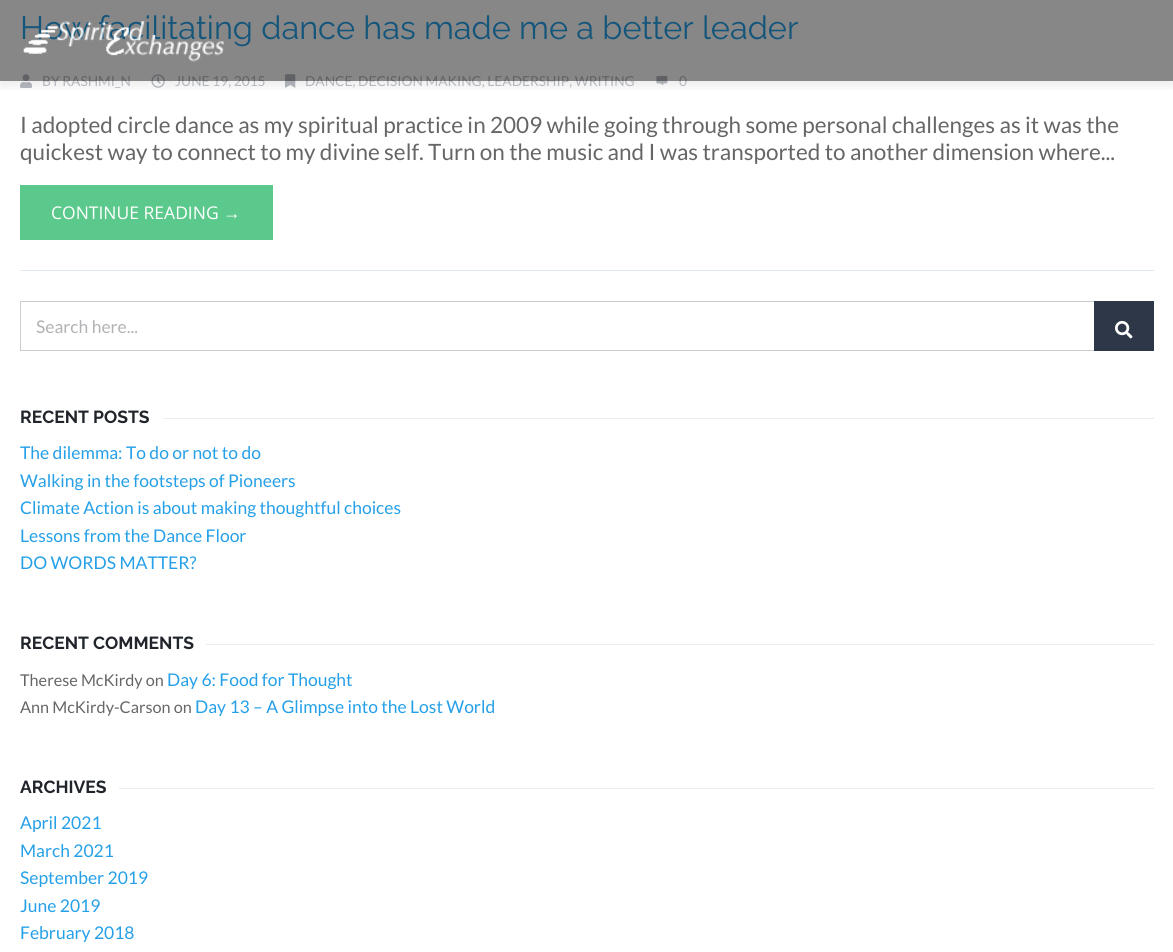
#include <cairo.h>
#include <math.h>
#include <stddef.h>

typedef struct { const char *family; double size; int italic, bold; unsigned color; } style_t;
static cairo_t *ctx;

static void ink(unsigned color) {
    cairo_set_source_rgb(ctx, (color >> 16) / 255.0, (color >> 8 & 255) / 255.0, (color & 255) / 255.0);
}

static void write(double x, double y, const char *s, const style_t *st) {
    cairo_select_font_face(ctx, st->family, st->italic ? CAIRO_FONT_SLANT_ITALIC : CAIRO_FONT_SLANT_NORMAL,
        st->bold ? CAIRO_FONT_WEIGHT_BOLD : CAIRO_FONT_WEIGHT_NORMAL);
    cairo_set_font_size(ctx, st->size);
    ink(st->color);
    cairo_move_to(ctx, x, y);
    cairo_show_text(ctx, s);
}

static void block(double x, double y, double w, double h, unsigned color) {
    ink(color);
    cairo_rectangle(ctx, x, y, w, h);
    cairo_fill(ctx);
}

static void round_path(double x, double y, double w, double h, double r) {
    cairo_new_sub_path(ctx);
    cairo_arc(ctx, x + w - r, y + h - r, r, 0, M_PI / 2);
    cairo_arc(ctx, x + r, y + h - r, r, M_PI / 2, M_PI);
    cairo_arc(ctx, x + r, y + r, r, M_PI, 1.5 * M_PI);
    cairo_arc(ctx, x + w - r, y + r, r, 1.5 * M_PI, 2 * M_PI);
    cairo_close_path(ctx);
}

static void blur_box(double x, double y, double w, double h, double r, double blur, double alpha) {
    cairo_push_group_with_content(ctx, CAIRO_CONTENT_ALPHA);
    cairo_set_operator(ctx, CAIRO_OPERATOR_SOURCE);
    for (int i = 15; i >= -15 && fmin(w, h) + blur * i / 3 > 0; i -= 2) {
        double e = blur * i / 6;
        cairo_set_source_rgba(ctx, 0, 0, 0, alpha * erfc((i - 1) / 8.5) / 2);
        round_path(x - e, y - e, w + 2 * e, h + 2 * e, fmax(0, fmin(r + e + blur * .6, fmin(w, h) / 2 + e)));
        cairo_fill(ctx);
    }
    cairo_pattern_t *soft = cairo_pop_group(ctx);
    cairo_mask(ctx, soft);
    cairo_pattern_destroy(soft);
}

static void paste(const char *path, double x, double y, double w, double h) {
    cairo_surface_t *image = cairo_image_surface_create_from_png(path);
    cairo_save(ctx);
    cairo_set_source_surface(ctx, image, x, y);
    cairo_rectangle(ctx, x, y, w, h);
    cairo_fill(ctx);
    cairo_restore(ctx);
    cairo_surface_destroy(image);
}

static const style_t s1 = {"Raleway", 32.5, 0, 0, 0x25a0e8};
static const style_t s2 = {"Lato", 13.75, 0, 0, 0xb5b8bf};
static const style_t s3 = {"Lato", 22.5, 0, 0, 0x666666};
static const style_t s4 = {"Open Sans", 17.5, 0, 0, 0xffffff};
static const style_t s5 = {"Liberation Sans", 17.5, 0, 0, 0xffffff};
static const style_t s6 = {"Lato", 17.5, 0, 0, 0xb2b2b6};
static const style_t s7 = {"Raleway", 17.5, 0, 1, 0x21252b};
static const style_t s8 = {"Lato", 17.5, 0, 0, 0x25a0e8};
static const style_t s9 = {"Lato", 16.25, 0, 0, 0x666666};

int main(void) {
    cairo_surface_t *surface = cairo_image_surface_create(CAIRO_FORMAT_RGB24, 1173, 952);
    ctx = cairo_create(surface);
    cairo_font_options_t *options = cairo_font_options_create();
    cairo_font_options_set_hint_metrics(options, CAIRO_HINT_METRICS_OFF);
    cairo_font_options_set_hint_style(options, CAIRO_HINT_STYLE_NONE);
    cairo_set_font_options(ctx, options);
    cairo_set_miter_limit(ctx, 4);
    ink(0xffffff);
    cairo_paint(ctx);
    paste("pic2.png", 20, 74, 12, 14);
    paste("pic3.png", 151, 74, 14, 14);
    paste("pic4.png", 285, 74, 11, 14);
    paste("pic5.png", 656, 75, 12, 11);
    cairo_save(ctx);
    cairo_rectangle(ctx, 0, 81, 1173, 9);
    cairo_clip(ctx);
    ink(0x000000);
    blur_box(0, 5, 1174, 81, 0, 6, 0.08);
    cairo_restore(ctx);
    write(20, 39, "How facilitating dance has made me a better leader", &s1);
    write(42, 86, "BY RASHMI_N", &s2);
    write(175, 86, "JUNE 19, 2015", &s2);
    write(305, 86, "DANCE, DECISION MAKING, LEADERSHIP, WRITING", &s2);
    write(679, 86, "0", &s2);
    cairo_set_source_rgba(ctx, 0, 0, 0, 0.47);
    cairo_rectangle(ctx, 0, 0, 1173, 81);
    cairo_fill(ctx);
    paste("pic1.png", 23, 21, 201, 41);
    block(20, 270, 1134, 1, 0xe2e8f0);
    write(20, 133, "I adopted circle dance as my spiritual practice in 2009 while going through some personal challenges as it was the", &s3);
    write(20, 160, "quickest way to connect to my divine self. Turn on the music and I was transported to another dimension where...", &s3);
    block(20, 185, 253, 55, 0x5bc98c);
    write(51, 219, "CONTINUE READING", &s4);
    write(223, 219, "→", &s5);
    cairo_rectangle(ctx, 20.5, 301.5, 1133, 49);
    ink(0xcccccc);
    cairo_set_line_width(ctx, 1);
    cairo_stroke(ctx);
    write(36, 333, "Search here...", &s6);
    block(1094, 301, 60, 50, 0x2d3748);
    paste("pic6.png", 1115, 320, 18, 19);
    write(20, 423, "RECENT POSTS", &s7);
    block(163, 418, 991, 1, 0xececec);
    write(20, 459, "The dilemma: To do or not to do", &s8);
    write(20, 487, "Walking in the footsteps of Pioneers", &s8);
    write(20, 514, "Climate Action is about making thoughtful choices", &s8);
    write(20, 542, "Lessons from the Dance Floor", &s8);
    write(20, 569, "DO WORDS MATTER?", &s8);
    write(20, 649, "RECENT COMMENTS", &s7);
    block(206, 644, 948, 1, 0xececec);
    write(20, 686, "Therese McKirdy on", &s9);
    write(167, 686, "Day 6: Food for Thought", &s8);
    write(20, 713, "Ann McKirdy-Carson on", &s9);
    write(195, 713, "Day 13 – A Glimpse into the Lost World", &s8);
    write(20, 793, "ARCHIVES", &s7);
    block(119, 788, 1035, 1, 0xececec);
    write(20, 829, "April 2021", &s8);
    write(20, 857, "March 2021", &s8);
    write(20, 884, "September 2019", &s8);
    write(20, 912, "June 2019", &s8);
    write(20, 939, "February 2018", &s8);
    cairo_surface_write_to_png(surface, "screenshot.png");
    cairo_font_options_destroy(options);
    cairo_destroy(ctx);
    cairo_surface_destroy(surface);
    return 0;
}
